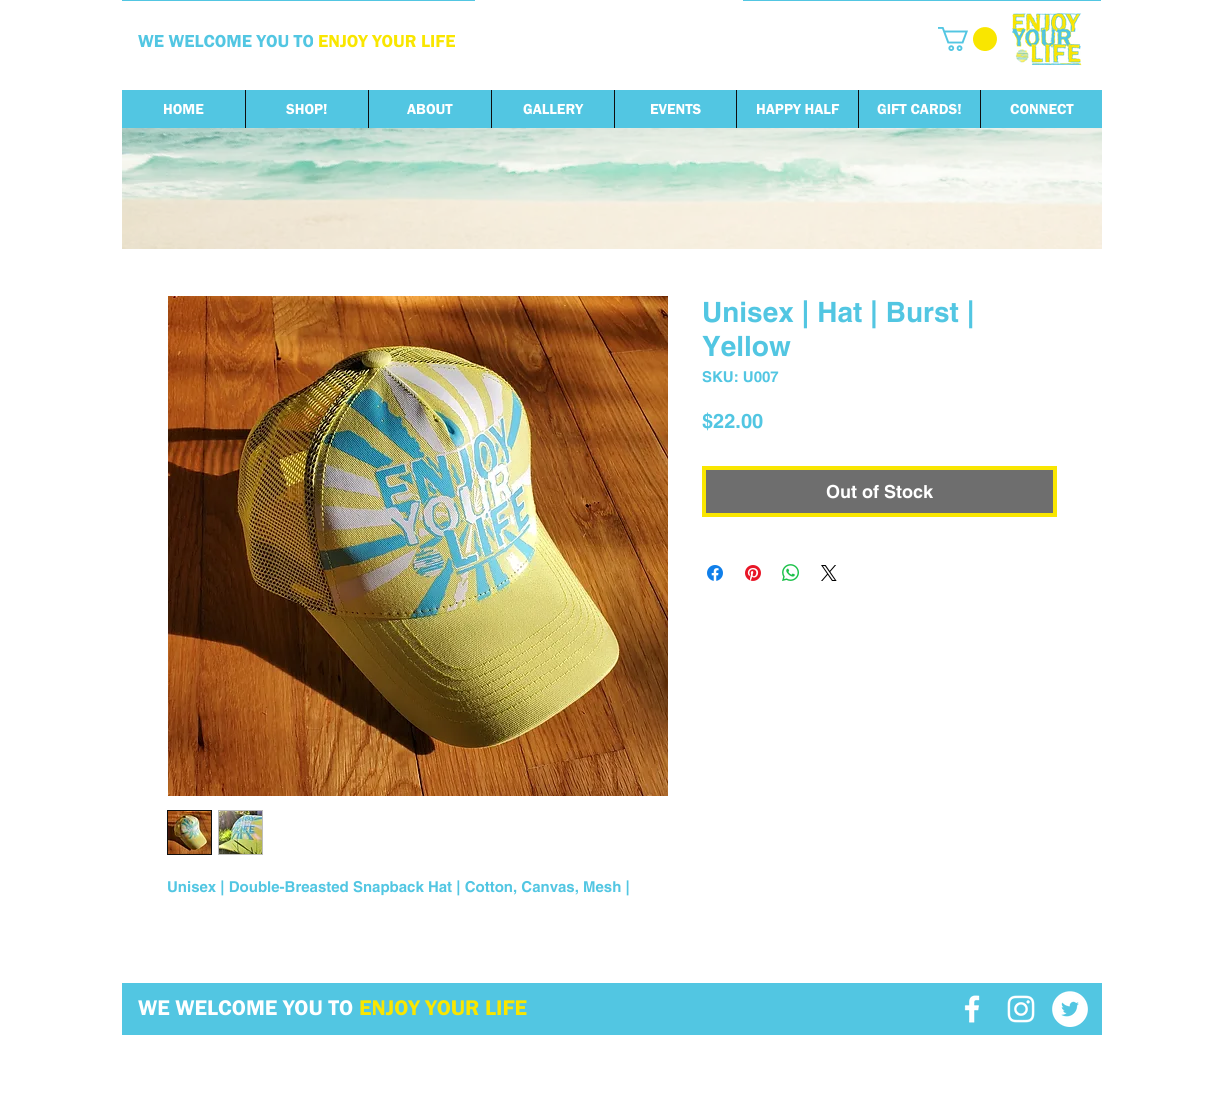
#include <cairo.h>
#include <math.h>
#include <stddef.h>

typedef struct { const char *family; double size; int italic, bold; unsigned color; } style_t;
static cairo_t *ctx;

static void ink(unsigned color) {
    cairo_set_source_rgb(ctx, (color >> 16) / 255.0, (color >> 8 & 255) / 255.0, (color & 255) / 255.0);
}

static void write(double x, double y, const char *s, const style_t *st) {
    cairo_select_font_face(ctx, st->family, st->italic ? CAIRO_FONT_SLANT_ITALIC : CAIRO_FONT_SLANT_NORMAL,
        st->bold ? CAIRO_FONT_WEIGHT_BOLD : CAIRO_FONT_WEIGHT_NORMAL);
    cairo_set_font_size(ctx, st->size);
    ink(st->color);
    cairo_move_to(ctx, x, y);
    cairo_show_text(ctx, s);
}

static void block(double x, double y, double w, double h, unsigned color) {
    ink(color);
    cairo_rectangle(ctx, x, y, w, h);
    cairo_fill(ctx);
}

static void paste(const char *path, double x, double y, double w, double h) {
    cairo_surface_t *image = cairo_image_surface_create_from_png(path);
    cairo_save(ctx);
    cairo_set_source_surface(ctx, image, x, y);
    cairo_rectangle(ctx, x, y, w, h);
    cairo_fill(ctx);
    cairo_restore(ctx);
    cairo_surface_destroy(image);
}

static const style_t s1 = {"Franklin Gothic", 18, 0, 0, 0x52c6e2};
static const style_t s2 = {"Franklin Gothic", 18, 0, 0, 0xf9e600};
static const style_t s3 = {"Franklin Gothic", 15, 0, 0, 0xffffff};
static const style_t s4 = {"helvetica", 28, 0, 1, 0x52c6e2};
static const style_t s5 = {"helvetica", 15, 0, 1, 0x52c6e2};
static const style_t s6 = {"helvetica", 20, 0, 1, 0x52c6e2};
static const style_t s7 = {"helvetica", 18, 0, 1, 0xffffff};
static const style_t s8 = {"Franklin Gothic", 22, 0, 0, 0xffffff};
static const style_t s9 = {"Franklin Gothic", 22, 0, 0, 0xf9e600};

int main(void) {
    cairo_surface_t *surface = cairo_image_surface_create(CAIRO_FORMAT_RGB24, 1224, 1113);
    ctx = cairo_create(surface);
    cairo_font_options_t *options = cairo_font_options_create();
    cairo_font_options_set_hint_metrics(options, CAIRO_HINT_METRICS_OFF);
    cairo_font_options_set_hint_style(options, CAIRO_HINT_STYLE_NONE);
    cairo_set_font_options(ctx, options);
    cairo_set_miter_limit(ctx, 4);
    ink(0xffffff);
    cairo_paint(ctx);
    block(122, 0, 979, 1, 0x52c6e2);
    block(475, 0, 268, 1, 0xffffff);
    write(138, 47, "WE WELCOME YOU TO", &s1);
    write(318, 47, "ENJOY YOUR LIFE", &s2);
    paste("pic1.png", 938, 27, 59, 24);
    paste("pic2.png", 1012, 13, 70, 53);
    block(122, 90, 980, 38, 0x52c6e2);
    write(163, 114, "HOME", &s3);
    block(245, 90, 1, 38, 0x0e0e0e);
    write(286, 114, "SHOP!", &s3);
    block(368, 90, 1, 38, 0x0e0e0e);
    write(407, 114, "ABOUT", &s3);
    block(491, 90, 1, 38, 0x0e0e0e);
    write(523, 114, "GALLERY", &s3);
    block(614, 90, 1, 38, 0x0e0e0e);
    write(650, 114, "EVENTS", &s3);
    block(736, 90, 1, 38, 0x0e0e0e);
    write(756, 114, "HAPPY HALF", &s3);
    block(858, 90, 1, 38, 0x0e0e0e);
    write(877, 114, "GIFT CARDS!", &s3);
    block(980, 90, 1, 38, 0x0e0e0e);
    write(1010, 114, "CONNECT", &s3);
    paste("pic3.png", 122, 128, 980, 121);
    write(702, 322, "Unisex | Hat | Burst |", &s4);
    write(702, 356, "Yellow", &s4);
    write(702, 382, "SKU: U007", &s5);
    write(702, 428, "$22.00", &s6);
    ink(0x6e6e6e);
    cairo_rectangle(ctx, 704, 468, 351, 47);
    cairo_fill_preserve(ctx);
    ink(0xf9e600);
    cairo_set_line_width(ctx, 4);
    cairo_stroke(ctx);
    write(826, 498, "Out of Stock", &s7);
    paste("pic4.png", 707, 565, 16, 16);
    paste("pic5.png", 745, 565, 16, 16);
    paste("pic6.png", 782, 564, 17, 17);
    paste("pic7.png", 821, 565, 16, 16);
    paste("pic8.png", 168, 296, 500, 500);
    cairo_rectangle(ctx, 167.5, 810.5, 44, 44);
    ink(0x0e0e0e);
    cairo_set_line_width(ctx, 1);
    cairo_stroke(ctx);
    paste("pic9.png", 168, 811, 43, 43);
    block(218, 810, 45, 45, 0xbdbdbd);
    paste("pic10.png", 219, 811, 43, 43);
    write(167, 892, "Unisex | Double-Breasted Snapback Hat | Cotton, Canvas, Mesh |", &s5);
    block(122, 983, 980, 52, 0x52c6e2);
    write(138, 1015, "WE WELCOME YOU TO", &s8);
    write(359, 1015, "ENJOY YOUR LIFE", &s9);
    paste("pic11.png", 964, 995, 16, 28);
    paste("pic12.png", 1007, 995, 28, 28);
    paste("pic13.png", 1052, 991, 36, 36);
    cairo_surface_write_to_png(surface, "screenshot.png");
    cairo_font_options_destroy(options);
    cairo_destroy(ctx);
    cairo_surface_destroy(surface);
    return 0;
}
